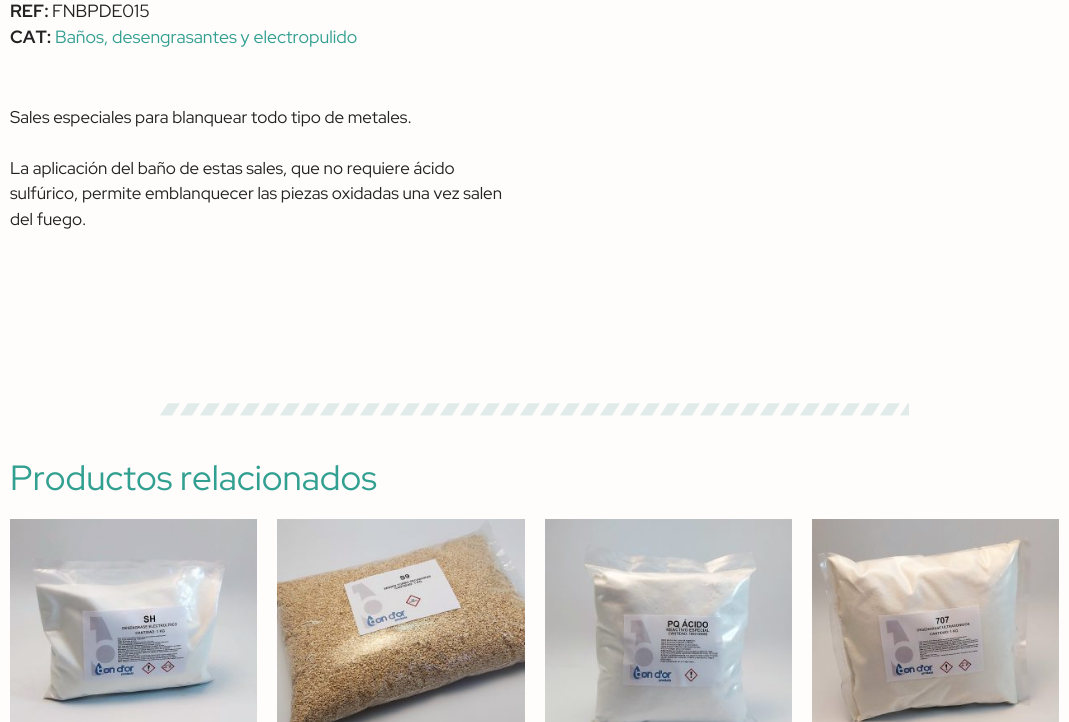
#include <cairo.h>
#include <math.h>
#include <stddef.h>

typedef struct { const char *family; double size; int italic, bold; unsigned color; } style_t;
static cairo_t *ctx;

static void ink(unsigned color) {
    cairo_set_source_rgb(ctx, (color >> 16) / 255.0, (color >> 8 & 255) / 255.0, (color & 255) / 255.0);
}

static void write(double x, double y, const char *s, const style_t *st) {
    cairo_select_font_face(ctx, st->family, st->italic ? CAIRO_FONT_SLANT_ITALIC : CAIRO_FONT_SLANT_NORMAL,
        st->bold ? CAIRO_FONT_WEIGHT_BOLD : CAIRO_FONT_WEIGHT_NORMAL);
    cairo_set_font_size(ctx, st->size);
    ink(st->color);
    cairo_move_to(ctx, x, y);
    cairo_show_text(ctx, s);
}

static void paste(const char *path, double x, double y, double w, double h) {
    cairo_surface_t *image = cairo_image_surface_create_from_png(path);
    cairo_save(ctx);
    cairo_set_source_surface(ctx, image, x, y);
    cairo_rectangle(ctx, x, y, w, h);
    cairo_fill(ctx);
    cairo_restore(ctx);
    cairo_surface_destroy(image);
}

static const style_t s1 = {"Red Hat Display", 17.7, 0, 1, 0x222222};
static const style_t s2 = {"Red Hat Display", 17.7, 0, 0, 0x222222};
static const style_t s3 = {"Red Hat Display", 17.7, 0, 0, 0x32a090};
static const style_t s4 = {"Red Hat Display", 17, 0, 0, 0x222222};
static const style_t s5 = {"Red Hat Display", 35, 0, 0, 0x32a090};

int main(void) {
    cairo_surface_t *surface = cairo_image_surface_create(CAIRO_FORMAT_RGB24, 1069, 722);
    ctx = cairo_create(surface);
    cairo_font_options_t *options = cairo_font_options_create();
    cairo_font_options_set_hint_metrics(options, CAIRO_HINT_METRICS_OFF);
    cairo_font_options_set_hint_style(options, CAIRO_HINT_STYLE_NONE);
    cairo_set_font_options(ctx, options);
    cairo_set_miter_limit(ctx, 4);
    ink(0xfffcfc);
    cairo_paint(ctx);
    write(10, 17, "REF:", &s1);
    write(52, 17, "FNBPDE015", &s2);
    write(10, 43, "CAT:", &s1);
    write(55, 43, "Baños, desengrasantes y electropulido", &s3);
    write(10, 123, "Sales especiales para blanquear todo tipo de metales.", &s4);
    write(10, 174, "La aplicación del baño de estas sales, que no requiere ácido", &s4);
    write(10, 199, "sulfúrico, permite emblanquecer las piezas oxidadas una vez salen", &s4);
    write(10, 225, "del fuego.", &s4);
    paste("pic1.png", 160, 403, 749, 13);
    write(10, 490, "Productos relacionados", &s5);
    paste("pic2.png", 10, 519, 247, 203);
    paste("pic3.png", 277, 519, 248, 203);
    paste("pic4.png", 545, 519, 247, 203);
    paste("pic5.png", 812, 519, 247, 203);
    cairo_surface_write_to_png(surface, "screenshot.png");
    cairo_font_options_destroy(options);
    cairo_destroy(ctx);
    cairo_surface_destroy(surface);
    return 0;
}
